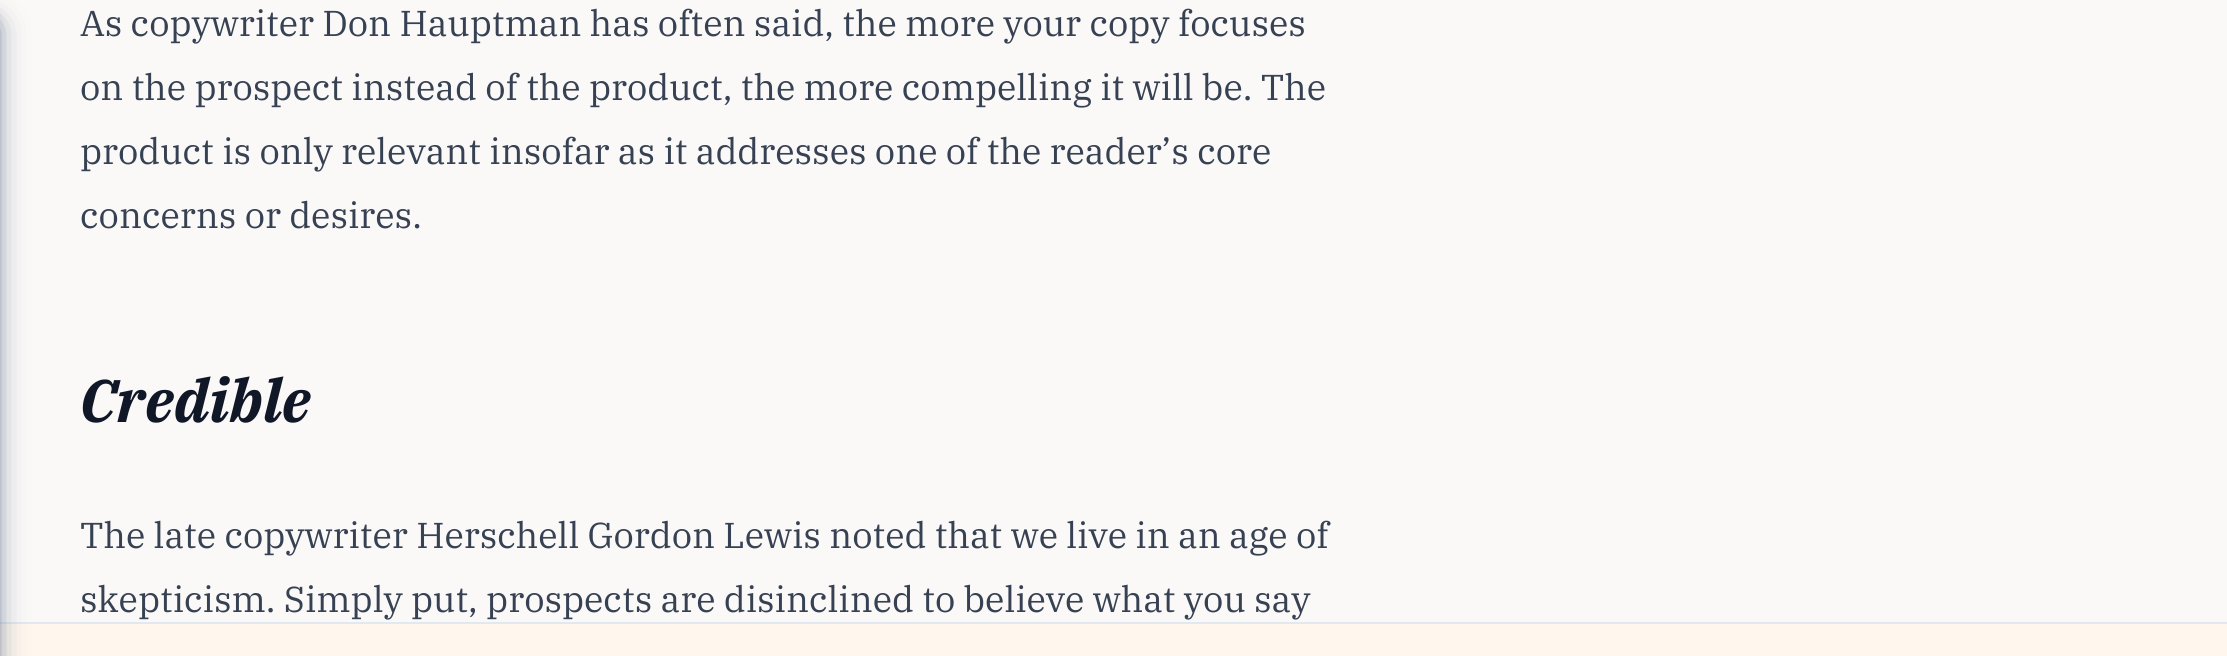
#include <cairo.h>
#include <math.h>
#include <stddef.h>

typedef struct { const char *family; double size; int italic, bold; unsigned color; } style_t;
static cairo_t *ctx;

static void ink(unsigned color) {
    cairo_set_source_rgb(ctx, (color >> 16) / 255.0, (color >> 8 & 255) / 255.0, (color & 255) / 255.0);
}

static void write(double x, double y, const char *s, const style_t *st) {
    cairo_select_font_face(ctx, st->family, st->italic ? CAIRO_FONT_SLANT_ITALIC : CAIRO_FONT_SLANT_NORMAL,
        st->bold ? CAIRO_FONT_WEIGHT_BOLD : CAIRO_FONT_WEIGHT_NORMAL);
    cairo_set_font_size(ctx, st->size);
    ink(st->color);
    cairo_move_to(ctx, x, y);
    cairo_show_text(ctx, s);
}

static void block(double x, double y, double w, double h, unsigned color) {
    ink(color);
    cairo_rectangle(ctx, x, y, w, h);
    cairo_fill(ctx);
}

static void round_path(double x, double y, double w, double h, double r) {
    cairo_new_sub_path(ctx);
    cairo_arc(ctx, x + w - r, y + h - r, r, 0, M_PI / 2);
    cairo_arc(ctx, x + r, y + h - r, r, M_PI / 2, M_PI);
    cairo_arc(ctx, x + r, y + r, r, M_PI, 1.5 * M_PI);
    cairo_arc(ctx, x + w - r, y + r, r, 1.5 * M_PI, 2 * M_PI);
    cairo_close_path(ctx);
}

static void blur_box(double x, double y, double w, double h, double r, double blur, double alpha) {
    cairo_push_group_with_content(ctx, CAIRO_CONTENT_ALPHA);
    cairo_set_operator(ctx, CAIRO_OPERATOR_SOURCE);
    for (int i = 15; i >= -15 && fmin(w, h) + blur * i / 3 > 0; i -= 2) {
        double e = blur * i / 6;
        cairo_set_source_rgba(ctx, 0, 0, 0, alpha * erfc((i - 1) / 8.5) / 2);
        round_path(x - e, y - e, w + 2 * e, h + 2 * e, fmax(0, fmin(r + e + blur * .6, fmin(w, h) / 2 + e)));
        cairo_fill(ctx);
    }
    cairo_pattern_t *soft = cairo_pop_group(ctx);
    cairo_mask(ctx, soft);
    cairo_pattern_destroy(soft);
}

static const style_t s1 = {"IBM Plex Serif", 36, 0, 0, 0x364153};
static const style_t s2 = {"IBM Plex Serif", 60, 1, 1, 0x101828};

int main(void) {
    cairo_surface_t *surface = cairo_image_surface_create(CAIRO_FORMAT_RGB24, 2227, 656);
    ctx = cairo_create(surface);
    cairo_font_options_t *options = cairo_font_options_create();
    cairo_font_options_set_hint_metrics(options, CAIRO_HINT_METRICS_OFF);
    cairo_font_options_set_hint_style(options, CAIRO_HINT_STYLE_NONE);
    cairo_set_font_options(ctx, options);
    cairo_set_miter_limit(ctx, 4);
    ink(0xfbf9f7);
    cairo_paint(ctx);
    block(0, 624, 2227, 32, 0xfff7ed);
    block(0, 622, 2227, 2, 0xe2e8f0);
    ink(0x62748e);
    blur_box(-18, 16, 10, 640, 0, 6, 1);
    blur_box(-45, 26, 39, 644, 0, 15, 1);
    write(80, 36, "As copywriter Don Hauptman has often said, the more your copy focuses", &s1);
    write(80, 100, "on the prospect instead of the product, the more compelling it will be. The", &s1);
    write(80, 164, "product is only relevant insofar as it addresses one of the reader’s core", &s1);
    write(80, 228, "concerns or desires.", &s1);
    write(80, 422, "Credible", &s2);
    write(80, 548, "The late copywriter Herschell Gordon Lewis noted that we live in an age of", &s1);
    write(80, 612, "skepticism. Simply put, prospects are disinclined to believe what you say", &s1);
    cairo_surface_write_to_png(surface, "screenshot.png");
    cairo_font_options_destroy(options);
    cairo_destroy(ctx);
    cairo_surface_destroy(surface);
    return 0;
}
